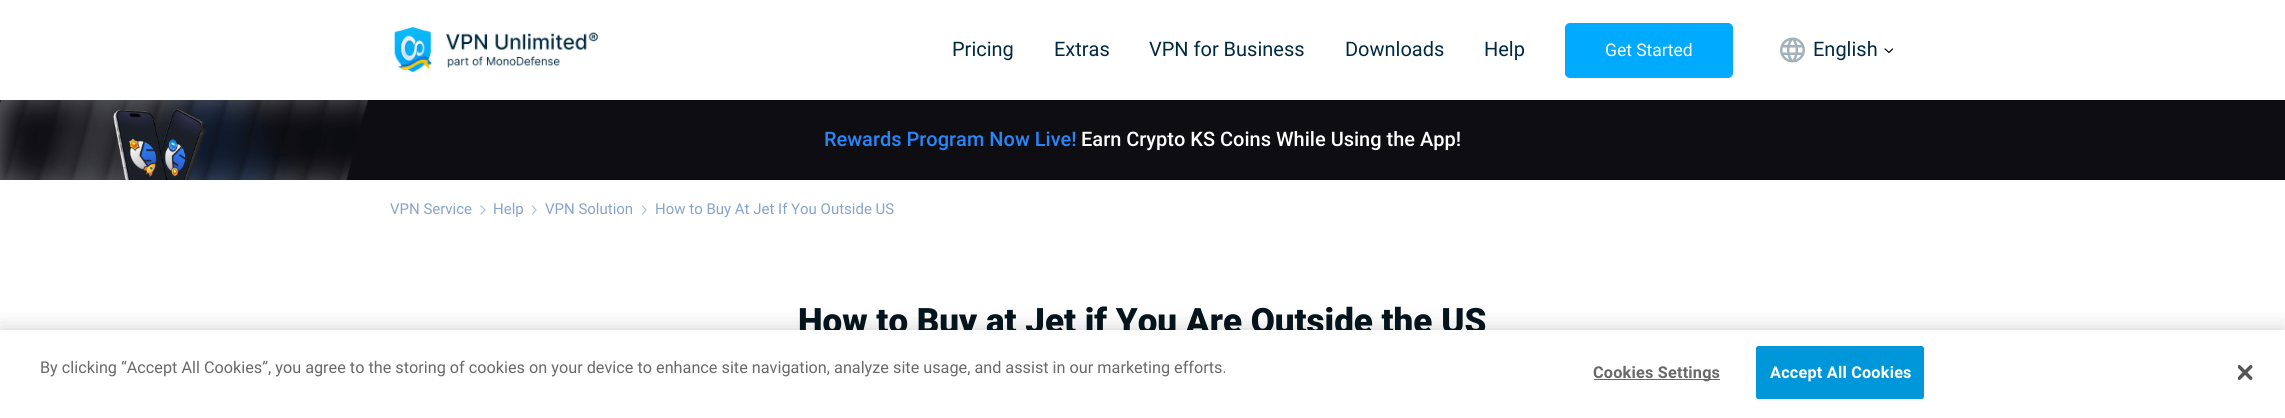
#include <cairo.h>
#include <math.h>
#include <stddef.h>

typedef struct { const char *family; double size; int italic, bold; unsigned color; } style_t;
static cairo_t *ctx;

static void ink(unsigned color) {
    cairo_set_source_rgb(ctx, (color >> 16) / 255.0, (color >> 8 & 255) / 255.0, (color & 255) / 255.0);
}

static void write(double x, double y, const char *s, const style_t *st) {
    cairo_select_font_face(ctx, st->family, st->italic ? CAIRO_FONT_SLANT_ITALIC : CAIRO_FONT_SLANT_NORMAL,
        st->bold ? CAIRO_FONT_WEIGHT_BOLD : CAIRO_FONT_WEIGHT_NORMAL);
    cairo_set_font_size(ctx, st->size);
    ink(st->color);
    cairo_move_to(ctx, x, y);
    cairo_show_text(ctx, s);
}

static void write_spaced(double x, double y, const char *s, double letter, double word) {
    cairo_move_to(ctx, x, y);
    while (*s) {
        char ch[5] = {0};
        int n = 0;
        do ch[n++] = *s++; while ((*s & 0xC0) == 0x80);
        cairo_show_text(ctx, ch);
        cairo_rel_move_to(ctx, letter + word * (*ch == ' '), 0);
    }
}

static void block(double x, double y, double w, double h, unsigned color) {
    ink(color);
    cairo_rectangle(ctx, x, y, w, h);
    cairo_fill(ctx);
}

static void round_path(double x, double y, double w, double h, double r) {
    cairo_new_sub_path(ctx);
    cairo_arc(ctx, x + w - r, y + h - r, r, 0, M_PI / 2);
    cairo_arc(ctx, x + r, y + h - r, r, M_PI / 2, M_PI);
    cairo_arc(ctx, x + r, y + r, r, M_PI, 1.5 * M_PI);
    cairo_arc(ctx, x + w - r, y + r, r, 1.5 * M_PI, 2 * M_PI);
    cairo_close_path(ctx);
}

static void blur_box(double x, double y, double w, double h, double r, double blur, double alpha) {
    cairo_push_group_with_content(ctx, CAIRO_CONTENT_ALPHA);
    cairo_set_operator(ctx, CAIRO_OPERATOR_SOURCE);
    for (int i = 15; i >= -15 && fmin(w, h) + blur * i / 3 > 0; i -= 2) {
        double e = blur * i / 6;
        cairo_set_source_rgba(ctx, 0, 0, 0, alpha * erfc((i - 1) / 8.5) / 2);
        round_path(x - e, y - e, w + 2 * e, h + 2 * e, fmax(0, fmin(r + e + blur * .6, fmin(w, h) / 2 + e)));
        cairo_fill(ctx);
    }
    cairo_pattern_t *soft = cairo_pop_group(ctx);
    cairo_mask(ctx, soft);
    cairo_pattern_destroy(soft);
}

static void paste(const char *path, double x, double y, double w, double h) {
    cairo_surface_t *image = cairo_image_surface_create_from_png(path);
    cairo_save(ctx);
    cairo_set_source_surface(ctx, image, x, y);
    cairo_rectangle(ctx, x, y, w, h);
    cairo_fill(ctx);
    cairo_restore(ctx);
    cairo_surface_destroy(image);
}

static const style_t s1 = {"Roboto", 20, 0, 0, 0x002a40};
static const style_t s2 = {"Roboto", 17.5, 0, 0, 0xffffff};
static const style_t s3 = {"Roboto Medium", 20, 0, 0, 0x2986fa};
static const style_t s4 = {"Roboto Medium", 20, 0, 0, 0xffffff};
static const style_t s5 = {"Roboto", 15, 0, 0, 0x86a3cd};
static const style_t s6 = {"Roboto Black", 35, 0, 0, 0x05151d};
static const style_t s7 = {"Roboto", 16.25, 0, 0, 0x696969};

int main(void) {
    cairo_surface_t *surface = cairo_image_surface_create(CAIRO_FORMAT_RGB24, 2285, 418);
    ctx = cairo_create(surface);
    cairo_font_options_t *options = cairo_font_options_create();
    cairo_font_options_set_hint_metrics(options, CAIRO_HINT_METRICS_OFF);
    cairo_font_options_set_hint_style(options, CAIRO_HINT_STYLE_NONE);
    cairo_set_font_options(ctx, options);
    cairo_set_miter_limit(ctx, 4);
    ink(0xffffff);
    cairo_paint(ctx);
    paste("pic1.png", 394, 27, 204, 45);
    write(952, 56, "Pricing", &s1);
    write(1054, 56, "Extras", &s1);
    write(1149, 56, "VPN for Business", &s1);
    write(1345, 56, "Downloads", &s1);
    write(1484, 56, "Help", &s1);
    ink(0x00aaff);
    round_path(1565.5, 23.5, 167, 54, 4.5);
    cairo_fill_preserve(ctx);
    cairo_set_line_width(ctx, 1);
    cairo_stroke(ctx);
    write(1605, 56, "Get Started", &s2);
    paste("pic2.png", 1780, 37, 25, 26);
    write(1813, 56, "English", &s1);
    cairo_new_path(ctx);
    cairo_move_to(ctx, 1885, 49);
    cairo_line_to(ctx, 1889, 52.5);
    cairo_line_to(ctx, 1892.5, 49);
    ink(0x000000);
    cairo_set_line_width(ctx, 1.2);
    cairo_set_line_cap(ctx, CAIRO_LINE_CAP_ROUND);
    cairo_set_line_join(ctx, CAIRO_LINE_JOIN_ROUND);
    cairo_stroke(ctx);
    block(0, 100, 2285, 80, 0x0d0d12);
    paste("pic3.png", 0, 100, 368, 80);
    write(824, 146, "Rewards Program Now Live!", &s3);
    write(1081, 146, "Earn Crypto KS Coins While Using the App!", &s4);
    write(390, 214, "VPN Service", &s5);
    write(493, 214, "Help", &s5);
    cairo_new_path(ctx);
    cairo_move_to(ctx, 481, 206);
    cairo_line_to(ctx, 485, 210);
    cairo_line_to(ctx, 481, 214);
    cairo_move_to(ctx, 532.5, 206);
    cairo_line_to(ctx, 536, 210);
    cairo_line_to(ctx, 532.5, 214);
    ink(0xaec1dd);
    cairo_stroke(ctx);
    write(545, 214, "VPN Solution", &s5);
    cairo_new_path(ctx);
    cairo_move_to(ctx, 642.5, 206);
    cairo_line_to(ctx, 646, 210);
    cairo_line_to(ctx, 642.5, 214);
    ink(0xaec1dd);
    cairo_stroke(ctx);
    write(655, 214, "How to Buy At Jet If You Outside US", &s5);
    write(798, 333, "How to Buy at Jet if You Are Outside the US", &s6);
    ink(0x000000);
    blur_box(0, 330, 2285, 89, 0, 11, 0.2);
    block(0, 330, 2285, 88, 0xffffff);
    write(40, 373, "By clicking “Accept All Cookies”, you agree to the storing of cookies on your device to enhance site navigation, analyze site usage, and assist in our marketing efforts.", &s7);
    block(1594, 379, 126, 1, 0x696969);
    cairo_select_font_face(ctx, "Roboto", CAIRO_FONT_SLANT_NORMAL, CAIRO_FONT_WEIGHT_BOLD);
    write_spaced(1593, 378, "Cookies Settings", 0.2, 0);
    ink(0x0097da);
    round_path(1756.5, 346.5, 167, 52, 2);
    cairo_fill_preserve(ctx);
    cairo_set_line_width(ctx, 1);
    cairo_set_line_cap(ctx, CAIRO_LINE_CAP_BUTT);
    cairo_set_line_join(ctx, CAIRO_LINE_JOIN_MITER);
    cairo_stroke(ctx);
    ink(0xffffff);
    write_spaced(1770, 378, "Accept All Cookies", 0.2, 0);
    paste("pic4.png", 2238, 365, 15, 15);
    cairo_surface_write_to_png(surface, "screenshot.png");
    cairo_font_options_destroy(options);
    cairo_destroy(ctx);
    cairo_surface_destroy(surface);
    return 0;
}
